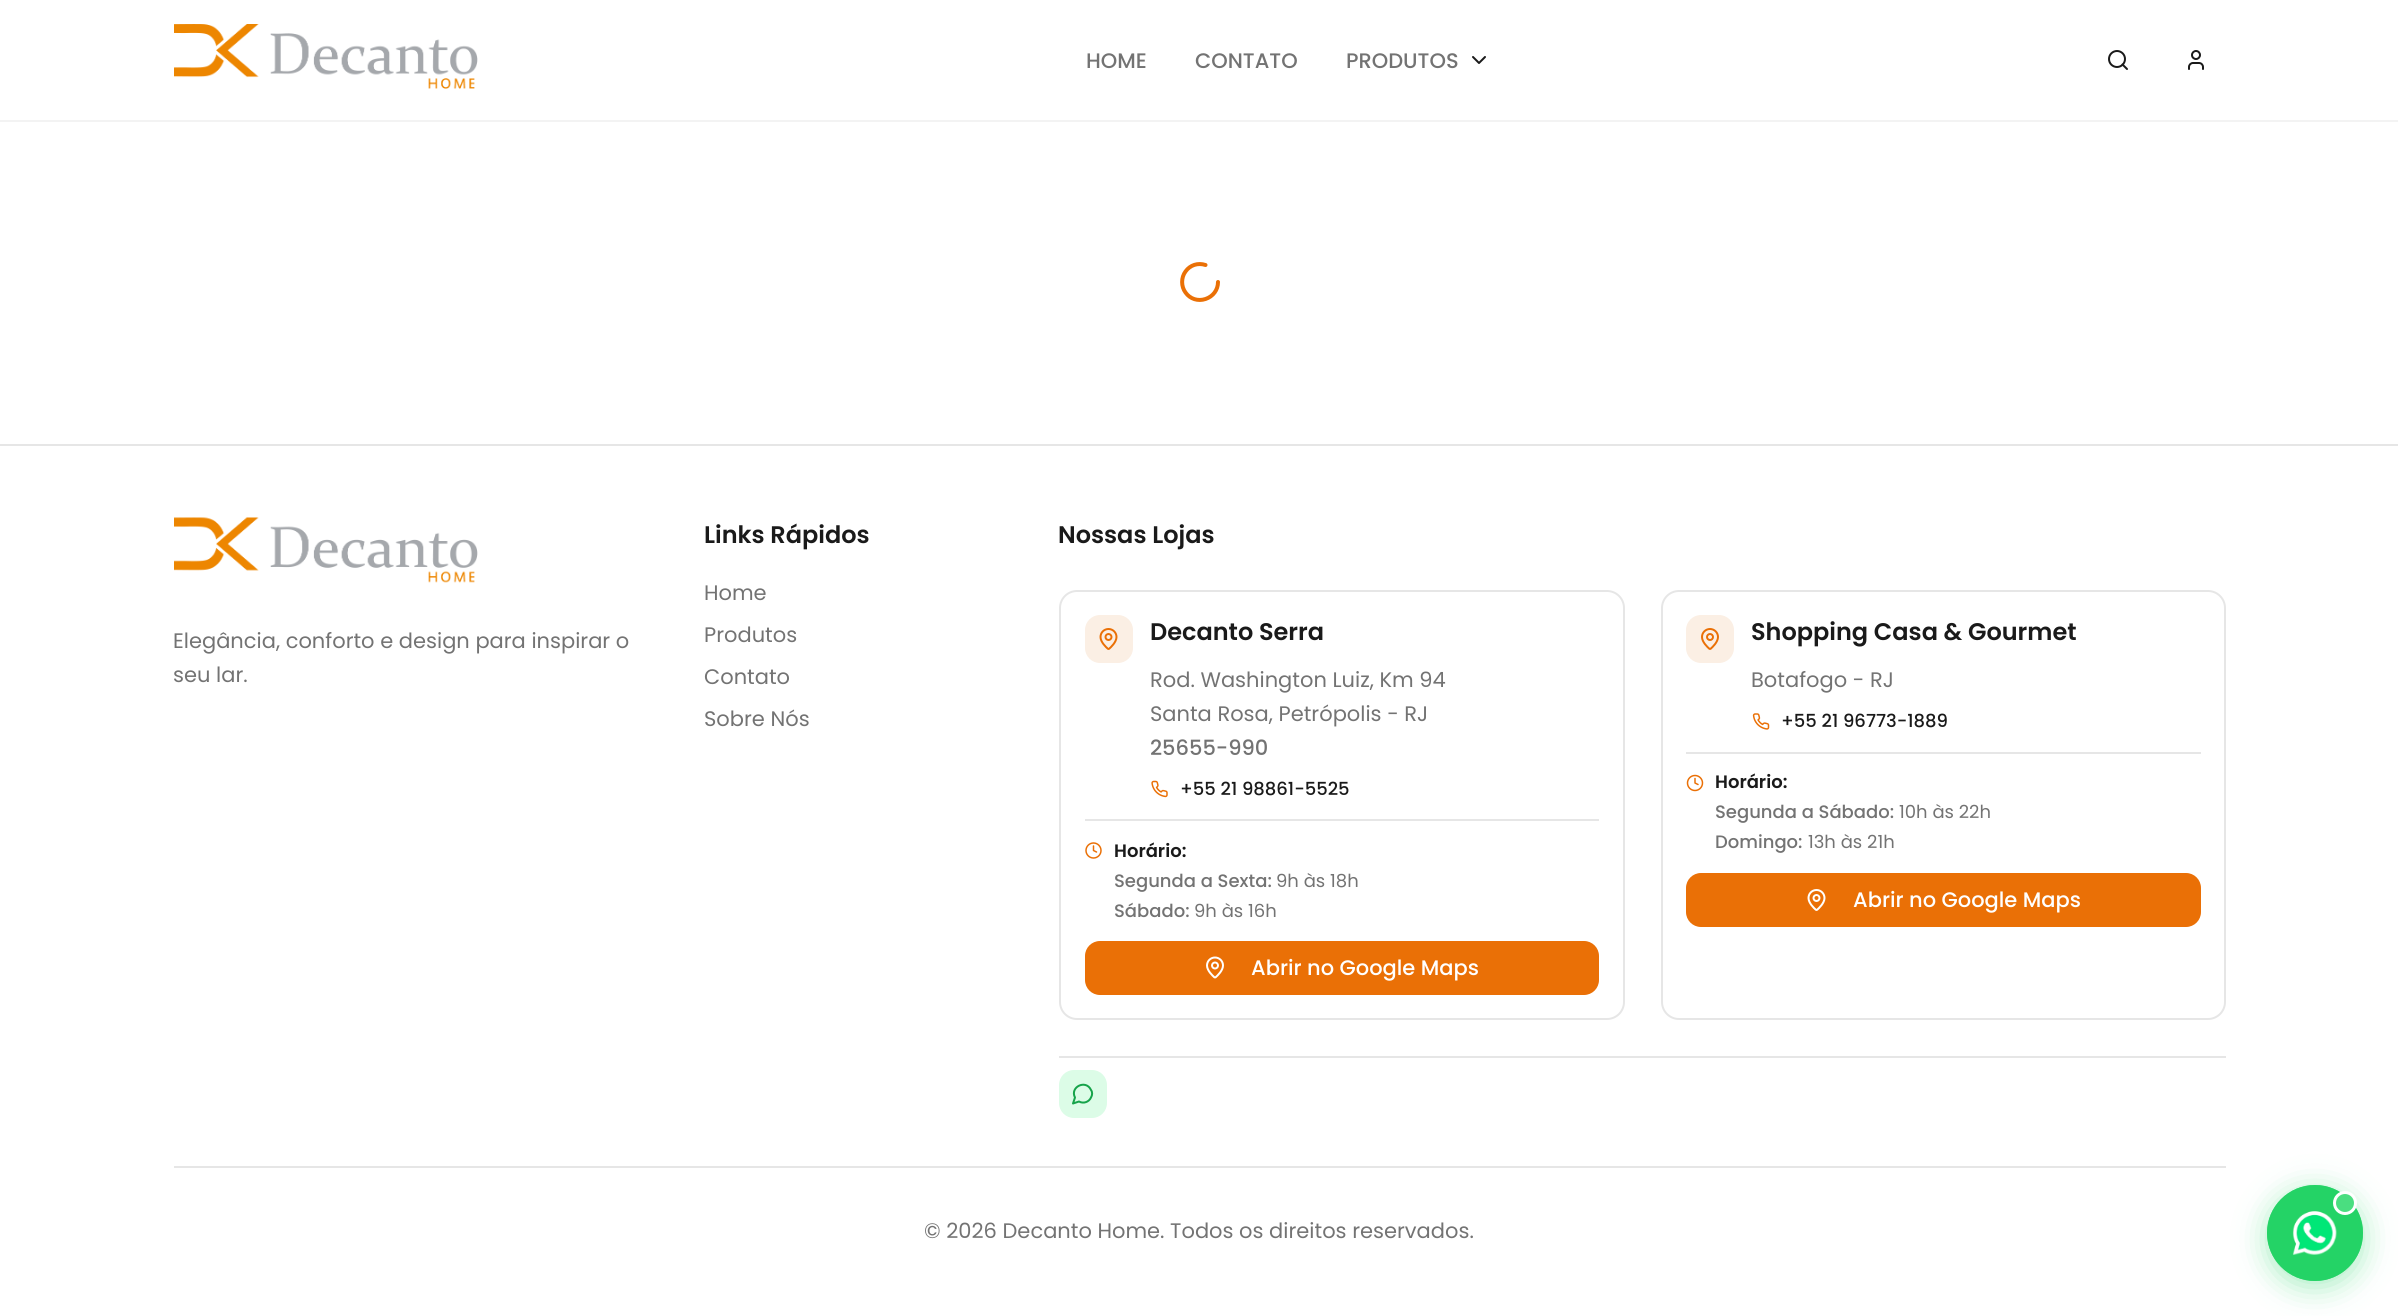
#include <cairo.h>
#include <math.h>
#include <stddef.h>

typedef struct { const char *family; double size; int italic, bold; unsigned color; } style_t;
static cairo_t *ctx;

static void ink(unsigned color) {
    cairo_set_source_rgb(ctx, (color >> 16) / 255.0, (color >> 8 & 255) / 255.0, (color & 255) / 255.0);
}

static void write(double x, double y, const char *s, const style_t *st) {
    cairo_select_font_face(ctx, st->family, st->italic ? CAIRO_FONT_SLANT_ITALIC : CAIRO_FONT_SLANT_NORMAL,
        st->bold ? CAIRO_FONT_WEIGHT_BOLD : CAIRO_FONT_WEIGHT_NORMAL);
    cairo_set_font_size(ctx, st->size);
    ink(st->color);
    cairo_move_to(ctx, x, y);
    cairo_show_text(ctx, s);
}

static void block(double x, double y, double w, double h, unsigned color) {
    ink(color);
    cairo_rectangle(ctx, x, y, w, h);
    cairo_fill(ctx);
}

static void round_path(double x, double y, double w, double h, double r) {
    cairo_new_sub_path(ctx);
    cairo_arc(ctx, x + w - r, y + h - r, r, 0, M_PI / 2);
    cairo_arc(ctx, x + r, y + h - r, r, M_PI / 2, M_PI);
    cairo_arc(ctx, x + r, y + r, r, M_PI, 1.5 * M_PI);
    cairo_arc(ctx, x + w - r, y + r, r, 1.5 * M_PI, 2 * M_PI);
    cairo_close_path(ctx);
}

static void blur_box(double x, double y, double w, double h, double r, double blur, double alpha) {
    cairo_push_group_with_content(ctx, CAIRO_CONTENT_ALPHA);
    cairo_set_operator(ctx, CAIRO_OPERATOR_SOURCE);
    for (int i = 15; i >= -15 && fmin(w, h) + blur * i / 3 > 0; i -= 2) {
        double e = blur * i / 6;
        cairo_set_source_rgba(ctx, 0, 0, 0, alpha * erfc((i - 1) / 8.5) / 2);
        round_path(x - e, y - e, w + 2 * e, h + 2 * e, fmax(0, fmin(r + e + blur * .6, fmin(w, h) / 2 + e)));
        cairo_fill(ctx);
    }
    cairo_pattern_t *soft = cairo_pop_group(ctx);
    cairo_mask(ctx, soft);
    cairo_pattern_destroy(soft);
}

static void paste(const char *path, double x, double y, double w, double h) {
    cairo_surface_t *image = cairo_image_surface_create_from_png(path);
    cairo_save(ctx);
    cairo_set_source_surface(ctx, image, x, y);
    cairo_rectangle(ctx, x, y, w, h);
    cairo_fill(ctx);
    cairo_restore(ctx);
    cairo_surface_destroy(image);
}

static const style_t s1 = {"Poppins Medium", 21, 0, 0, 0x737373};
static const style_t s2 = {"Poppins", 21, 0, 0, 0x737373};
static const style_t s3 = {"Poppins SemiBold", 24, 0, 0, 0x1a1a1a};
static const style_t s4 = {"Poppins Medium", 18, 0, 0, 0x1a1a1a};
static const style_t s5 = {"Poppins SemiBold", 18, 0, 0, 0x1a1a1a};
static const style_t s6 = {"Poppins Medium", 18, 0, 0, 0x737373};
static const style_t s7 = {"Poppins", 18, 0, 0, 0x737373};
static const style_t s8 = {"Poppins Medium", 21, 0, 0, 0xffffff};

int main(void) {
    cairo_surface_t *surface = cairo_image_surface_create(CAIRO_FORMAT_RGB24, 2398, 1316);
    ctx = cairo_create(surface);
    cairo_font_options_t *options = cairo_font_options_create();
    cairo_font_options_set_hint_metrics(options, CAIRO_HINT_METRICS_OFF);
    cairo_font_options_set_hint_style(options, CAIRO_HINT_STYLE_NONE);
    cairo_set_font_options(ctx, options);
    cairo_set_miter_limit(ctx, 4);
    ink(0xffffff);
    cairo_paint(ctx);
    block(0, 120, 2398, 2, 0xf3f3f3);
    paste("pic1.png", 174, 24, 304, 65);
    write(1086, 68, "HOME", &s1);
    write(1195, 68, "CONTATO", &s1);
    write(1346, 68, "PRODUTOS", &s1);
    cairo_new_path(ctx);
    cairo_move_to(ctx, 1473, 57);
    cairo_line_to(ctx, 1479, 63);
    cairo_line_to(ctx, 1485, 57);
    ink(0x1a1a1a);
    cairo_set_line_cap(ctx, CAIRO_LINE_CAP_ROUND);
    cairo_set_line_join(ctx, CAIRO_LINE_JOIN_ROUND);
    cairo_stroke(ctx);
    cairo_arc(ctx, 2117, 59, 8, 0, 2 * M_PI);
    cairo_set_line_cap(ctx, CAIRO_LINE_CAP_BUTT);
    cairo_set_line_join(ctx, CAIRO_LINE_JOIN_MITER);
    cairo_stroke(ctx);
    cairo_new_path(ctx);
    cairo_move_to(ctx, 2127, 69);
    cairo_line_to(ctx, 2122.5, 64.5);
    cairo_set_line_cap(ctx, CAIRO_LINE_CAP_ROUND);
    cairo_set_line_join(ctx, CAIRO_LINE_JOIN_ROUND);
    cairo_stroke(ctx);
    paste("pic2.png", 2188, 50, 16, 20);
    cairo_new_path(ctx);
    cairo_move_to(ctx, 1218, 282);
    cairo_curve_to(ctx, 1218, 290, 1213, 296.5, 1205.5, 299);
    cairo_curve_to(ctx, 1198, 301.5, 1190, 299, 1185.5, 292.5);
    cairo_curve_to(ctx, 1181, 286.5, 1181, 277.5, 1185.5, 271.5);
    cairo_curve_to(ctx, 1190, 265, 1198, 262.5, 1205.5, 265);
    ink(0xea7006);
    cairo_set_line_width(ctx, 4);
    cairo_stroke(ctx);
    block(0, 444, 2398, 2, 0xe6e6e6);
    paste("pic3.png", 174, 517, 304, 66);
    write(173, 648, "Elegância, conforto e design para inspirar o", &s2);
    write(173, 682, "seu lar.", &s2);
    write(704, 543, "Links Rápidos", &s3);
    write(704, 600, "Home", &s2);
    write(704, 642, "Produtos", &s2);
    write(704, 684, "Contato", &s2);
    write(704, 726, "Sobre Nós", &s2);
    write(1058, 543, "Nossas Lojas", &s3);
    round_path(1060, 591, 564, 428, 17);
    ink(0xe6e6e6);
    cairo_set_line_width(ctx, 2);
    cairo_set_line_cap(ctx, CAIRO_LINE_CAP_BUTT);
    cairo_set_line_join(ctx, CAIRO_LINE_JOIN_MITER);
    cairo_stroke(ctx);
    ink(0xfbefe4);
    round_path(1085, 615, 48, 48, 15);
    cairo_fill(ctx);
    paste("pic4.png", 1099, 628, 19, 22);
    write(1150, 640, "Decanto Serra", &s3);
    write(1150, 687, "Rod. Washington Luiz, Km 94", &s2);
    write(1150, 721, "Santa Rosa, Petrópolis - RJ", &s2);
    write(1150, 755, "25655-990", &s1);
    paste("pic5.png", 1151, 780, 17, 18);
    write(1180, 795, "+55 21 98861-5525", &s4);
    block(1085, 819, 514, 2, 0xe6e6e6);
    cairo_new_path(ctx);
    cairo_arc(ctx, 1093.5, 850.5, 7.5, 0, 2 * M_PI);
    ink(0xea7006);
    cairo_set_line_width(ctx, 1.5);
    cairo_stroke(ctx);
    cairo_new_path(ctx);
    cairo_move_to(ctx, 1093.5, 846);
    cairo_line_to(ctx, 1093.5, 850.5);
    cairo_line_to(ctx, 1096.5, 852);
    cairo_set_line_cap(ctx, CAIRO_LINE_CAP_ROUND);
    cairo_set_line_join(ctx, CAIRO_LINE_JOIN_ROUND);
    cairo_stroke(ctx);
    write(1114, 857, "Horário:", &s5);
    write(1114, 887, "Segunda a Sexta:", &s6);
    write(1276, 887, "9h às 18h", &s7);
    write(1114, 917, "Sábado:", &s6);
    write(1194, 917, "9h às 16h", &s7);
    ink(0xea7006);
    round_path(1085, 941, 514, 54, 15);
    cairo_fill(ctx);
    paste("pic6.png", 1206, 956, 18, 23);
    write(1251, 975, "Abrir no Google Maps", &s8);
    round_path(1662, 591, 563, 428, 17);
    ink(0xe6e6e6);
    cairo_set_line_width(ctx, 2);
    cairo_set_line_cap(ctx, CAIRO_LINE_CAP_BUTT);
    cairo_set_line_join(ctx, CAIRO_LINE_JOIN_MITER);
    cairo_stroke(ctx);
    ink(0xfbefe4);
    round_path(1686, 615, 48, 48, 15);
    cairo_fill(ctx);
    paste("pic7.png", 1701, 628, 18, 22);
    write(1751, 640, "Shopping Casa & Gourmet", &s3);
    write(1751, 687, "Botafogo - RJ", &s2);
    paste("pic8.png", 1752, 713, 18, 17);
    write(1781, 727, "+55 21 96773-1889", &s4);
    block(1686, 752, 515, 2, 0xe6e6e6);
    cairo_new_path(ctx);
    cairo_arc(ctx, 1695, 783, 7.5, 0, 2 * M_PI);
    ink(0xea7006);
    cairo_set_line_width(ctx, 1.5);
    cairo_stroke(ctx);
    cairo_new_path(ctx);
    cairo_move_to(ctx, 1695, 778.5);
    cairo_line_to(ctx, 1695, 783);
    cairo_line_to(ctx, 1698, 784.5);
    cairo_set_line_cap(ctx, CAIRO_LINE_CAP_ROUND);
    cairo_set_line_join(ctx, CAIRO_LINE_JOIN_ROUND);
    cairo_stroke(ctx);
    write(1715, 788, "Horário:", &s5);
    write(1715, 818, "Segunda a Sábado:", &s6);
    write(1899, 818, "10h às 22h", &s7);
    write(1715, 848, "Domingo:", &s6);
    write(1808, 848, "13h às 21h", &s7);
    ink(0xea7006);
    round_path(1686, 873, 515, 54, 15);
    cairo_fill(ctx);
    paste("pic9.png", 1807, 889, 19, 22);
    write(1853, 907, "Abrir no Google Maps", &s8);
    block(1059, 1056, 1167, 2, 0xe6e6e6);
    ink(0xdcfce7);
    round_path(1059, 1070, 48, 48, 15);
    cairo_fill(ctx);
    cairo_new_path(ctx);
    cairo_move_to(ctx, 1079, 1101.5);
    cairo_curve_to(ctx, 1083.5, 1104, 1089, 1102, 1091, 1097.5);
    cairo_curve_to(ctx, 1092.5, 1095, 1092.5, 1092, 1091, 1090);
    cairo_curve_to(ctx, 1086, 1079, 1069.5, 1087, 1075, 1097.5);
    cairo_line_to(ctx, 1073, 1103.5);
    cairo_close_path(ctx);
    ink(0x16a34a);
    cairo_set_line_width(ctx, 2);
    cairo_stroke(ctx);
    block(174, 1166, 2052, 2, 0xe6e6e6);
    write(924, 1238, "© 2026 Decanto Home. Todos os direitos reservados.", &s2);
    ink(0x25d366);
    blur_box(2267, 1191, 96, 96, 48, 15, 0.4);
    ink(0x25d366);
    cairo_arc(ctx, 2315, 1233, 48, 0, 2 * M_PI);
    cairo_fill(ctx);
    cairo_set_source_rgba(ctx, 0.145, 0.827, 0.4, 0.75);
    cairo_arc(ctx, 2315, 1233, 48, 0, 2 * M_PI);
    cairo_fill(ctx);
    paste("pic10.png", 2292, 1211, 45, 44);
    ink(0x4ade80);
    cairo_arc(ctx, 2345, 1203, 10.5, 0, 2 * M_PI);
    cairo_fill_preserve(ctx);
    ink(0xffffff);
    cairo_set_line_width(ctx, 3);
    cairo_set_line_cap(ctx, CAIRO_LINE_CAP_BUTT);
    cairo_set_line_join(ctx, CAIRO_LINE_JOIN_MITER);
    cairo_stroke(ctx);
    cairo_surface_write_to_png(surface, "screenshot.png");
    cairo_font_options_destroy(options);
    cairo_destroy(ctx);
    cairo_surface_destroy(surface);
    return 0;
}
